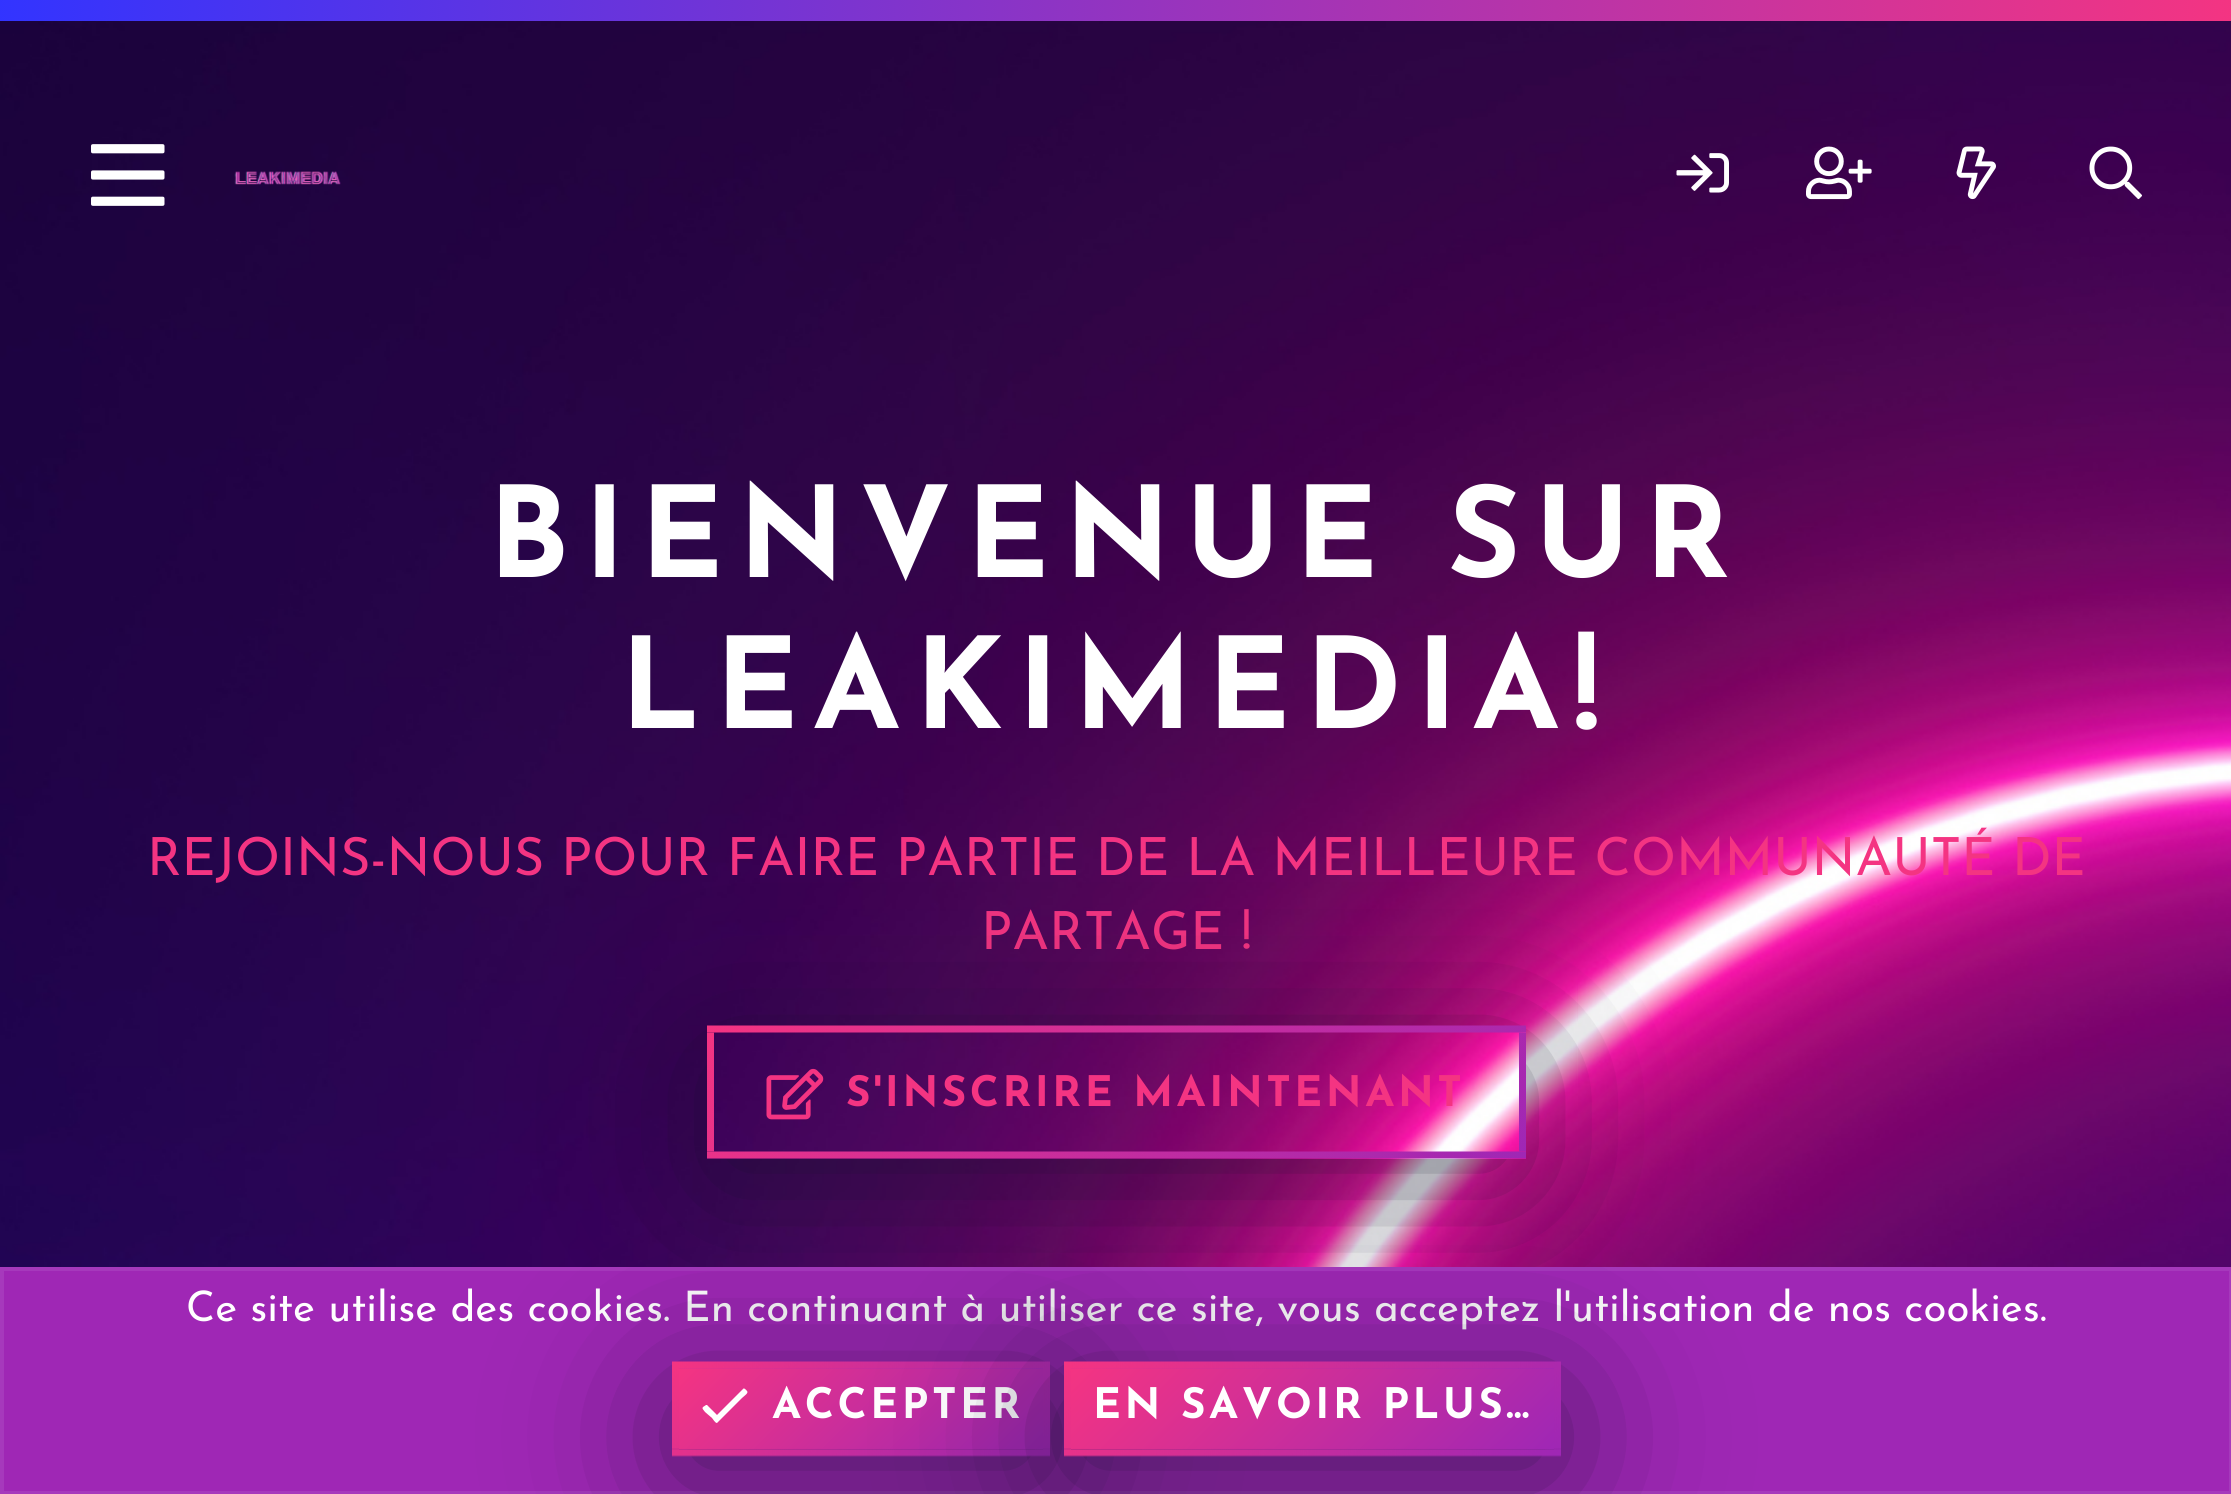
#include <cairo.h>
#include <math.h>
#include <stddef.h>

typedef struct { const char *family; double size; int italic, bold; unsigned color; } style_t;
static cairo_t *ctx;

static void ink(unsigned color) {
    cairo_set_source_rgb(ctx, (color >> 16) / 255.0, (color >> 8 & 255) / 255.0, (color & 255) / 255.0);
}

static void write(double x, double y, const char *s, const style_t *st) {
    cairo_select_font_face(ctx, st->family, st->italic ? CAIRO_FONT_SLANT_ITALIC : CAIRO_FONT_SLANT_NORMAL,
        st->bold ? CAIRO_FONT_WEIGHT_BOLD : CAIRO_FONT_WEIGHT_NORMAL);
    cairo_set_font_size(ctx, st->size);
    ink(st->color);
    cairo_move_to(ctx, x, y);
    cairo_show_text(ctx, s);
}

static void write_spaced(double x, double y, const char *s, double letter, double word) {
    cairo_move_to(ctx, x, y);
    while (*s) {
        char ch[5] = {0};
        int n = 0;
        do ch[n++] = *s++; while ((*s & 0xC0) == 0x80);
        cairo_show_text(ctx, ch);
        cairo_rel_move_to(ctx, letter + word * (*ch == ' '), 0);
    }
}

static void round_path(double x, double y, double w, double h, double r) {
    cairo_new_sub_path(ctx);
    cairo_arc(ctx, x + w - r, y + h - r, r, 0, M_PI / 2);
    cairo_arc(ctx, x + r, y + h - r, r, M_PI / 2, M_PI);
    cairo_arc(ctx, x + r, y + r, r, M_PI, 1.5 * M_PI);
    cairo_arc(ctx, x + w - r, y + r, r, 1.5 * M_PI, 2 * M_PI);
    cairo_close_path(ctx);
}

static void blur_box(double x, double y, double w, double h, double r, double blur, double alpha) {
    cairo_push_group_with_content(ctx, CAIRO_CONTENT_ALPHA);
    cairo_set_operator(ctx, CAIRO_OPERATOR_SOURCE);
    for (int i = 15; i >= -15 && fmin(w, h) + blur * i / 3 > 0; i -= 2) {
        double e = blur * i / 6;
        cairo_set_source_rgba(ctx, 0, 0, 0, alpha * erfc((i - 1) / 8.5) / 2);
        round_path(x - e, y - e, w + 2 * e, h + 2 * e, fmax(0, fmin(r + e + blur * .6, fmin(w, h) / 2 + e)));
        cairo_fill(ctx);
    }
    cairo_pattern_t *soft = cairo_pop_group(ctx);
    cairo_mask(ctx, soft);
    cairo_pattern_destroy(soft);
}

static void paste(const char *path, double x, double y, double w, double h) {
    cairo_surface_t *image = cairo_image_surface_create_from_png(path);
    cairo_save(ctx);
    cairo_set_source_surface(ctx, image, x, y);
    cairo_rectangle(ctx, x, y, w, h);
    cairo_fill(ctx);
    cairo_restore(ctx);
    cairo_surface_destroy(image);
}

static const style_t s1 = {"Josefin Sans", 52.5, 0, 0, 0xf43482};
static const style_t s2 = {"Josefin Sans", 42, 0, 0, 0xffffff};

int main(void) {
    cairo_surface_t *surface = cairo_image_surface_create(CAIRO_FORMAT_RGB24, 2231, 1494);
    ctx = cairo_create(surface);
    cairo_font_options_t *options = cairo_font_options_create();
    cairo_font_options_set_hint_metrics(options, CAIRO_HINT_METRICS_OFF);
    cairo_font_options_set_hint_style(options, CAIRO_HINT_STYLE_NONE);
    cairo_set_font_options(ctx, options);
    cairo_set_miter_limit(ctx, 4);
    cairo_pattern_t *gradient;
    ink(0xffffff);
    cairo_paint(ctx);
    paste("pic1.png", 0, 21, 2231, 1246);
    paste("pic2.png", 0, 0, 2231, 21);
    paste("pic3.png", 91, 144, 74, 62);
    paste("pic4.png", 234, 171, 107, 14);
    paste("pic5.png", 1676, 153, 53, 40);
    paste("pic6.png", 1806, 146, 66, 54);
    paste("pic7.png", 1956, 146, 40, 54);
    paste("pic8.png", 2089, 146, 53, 54);
    cairo_select_font_face(ctx, "Josefin Sans", CAIRO_FONT_SLANT_NORMAL, CAIRO_FONT_WEIGHT_BOLD);
    cairo_set_font_size(ctx, 126);
    ink(0xffffff);
    write_spaced(488, 577, "BIENVENUE SUR", 14, 0);
    write_spaced(620, 728, "LEAKIMEDIA!", 14, 0);
    write(147, 875, "REJOINS-NOUS POUR FAIRE PARTIE DE LA MEILLEURE COMMUNAUTÉ DE", &s1);
    write(981, 949, "PARTAGE !", &s1);
    cairo_save(ctx);
    cairo_set_fill_rule(ctx, CAIRO_FILL_RULE_EVEN_ODD);
    cairo_new_path(ctx);
    cairo_move_to(ctx, 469, 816);
    cairo_line_to(ctx, 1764, 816);
    cairo_line_to(ctx, 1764, 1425);
    cairo_line_to(ctx, 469, 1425);
    cairo_close_path(ctx);
    cairo_move_to(ctx, 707, 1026);
    cairo_line_to(ctx, 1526, 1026);
    cairo_line_to(ctx, 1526, 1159);
    cairo_line_to(ctx, 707, 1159);
    cairo_close_path(ctx);
    cairo_clip(ctx);
    ink(0x0e0f25);
    blur_box(707, 1054, 819, 133, 0, 79, 0.6);
    cairo_restore(ctx);
    paste("pic9.png", 707, 1025, 819, 134);
    paste("pic10.png", 766, 1068, 58, 52);
    cairo_select_font_face(ctx, "Josefin Sans", CAIRO_FONT_SLANT_NORMAL, CAIRO_FONT_WEIGHT_BOLD);
    cairo_set_font_size(ctx, 42);
    write_spaced(846, 1106, "S'INSCRIRE MAINTENANT", 3.5, 0);
    ink(0x9f27b5);
    cairo_rectangle(ctx, 2, 1269, 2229, 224);
    cairo_fill_preserve(ctx);
    ink(0xa639bc);
    cairo_set_line_width(ctx, 4);
    cairo_stroke(ctx);
    write(186, 1321, "Ce site utilise des cookies. En continuant à utiliser ce site, vous acceptez l'utilisation de nos cookies.", &s2);
    ink(0x0e0f25);
    blur_box(672, 1390, 378, 94, 0, 79, 0.6);
    gradient = cairo_pattern_create_linear(750, 1217, 972, 1439);
    cairo_pattern_add_color_stop_rgba(gradient, 0, 0.957, 0.204, 0.51, 1);
    cairo_pattern_add_color_stop_rgba(gradient, 1, 0.624, 0.153, 0.71, 1);
    cairo_set_source(ctx, gradient);
    cairo_pattern_destroy(gradient);
    cairo_rectangle(ctx, 679, 1368, 364, 1);
    cairo_fill(ctx);
    gradient = cairo_pattern_create_linear(750, 1298, 972, 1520);
    cairo_pattern_add_color_stop_rgba(gradient, 0, 0.957, 0.204, 0.51, 1);
    cairo_pattern_add_color_stop_rgba(gradient, 1, 0.624, 0.153, 0.71, 1);
    cairo_set_source(ctx, gradient);
    cairo_pattern_destroy(gradient);
    cairo_rectangle(ctx, 679, 1369, 364, 80);
    cairo_fill(ctx);
    paste("pic11.png", 672, 1361, 378, 96);
    ink(0xffffff);
    cairo_new_path(ctx);
    cairo_move_to(ctx, 743, 1389);
    cairo_curve_to(ctx, 744, 1387, 747, 1391, 747, 1391);
    cairo_curve_to(ctx, 749, 1393, 744, 1396, 742, 1398);
    cairo_line_to(ctx, 717, 1423);
    cairo_curve_to(ctx, 715, 1423, 713, 1419, 712, 1418);
    cairo_line_to(ctx, 705, 1412);
    cairo_curve_to(ctx, 702, 1408, 701, 1408, 706, 1405);
    cairo_line_to(ctx, 707, 1405);
    cairo_line_to(ctx, 717, 1415);
    cairo_close_path(ctx);
    cairo_fill(ctx);
    cairo_select_font_face(ctx, "Josefin Sans", CAIRO_FONT_SLANT_NORMAL, CAIRO_FONT_WEIGHT_BOLD);
    write_spaced(772, 1418, "ACCEPTER", 3.5, 0);
    ink(0x0e0f25);
    blur_box(1064, 1390, 497, 94, 0, 79, 0.6);
    gradient = cairo_pattern_create_linear(1172, 1187, 1453, 1469);
    cairo_pattern_add_color_stop_rgba(gradient, 0, 0.957, 0.204, 0.51, 1);
    cairo_pattern_add_color_stop_rgba(gradient, 1, 0.624, 0.153, 0.71, 1);
    cairo_set_source(ctx, gradient);
    cairo_pattern_destroy(gradient);
    cairo_rectangle(ctx, 1071, 1368, 483, 1);
    cairo_fill(ctx);
    gradient = cairo_pattern_create_linear(1172, 1268, 1453, 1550);
    cairo_pattern_add_color_stop_rgba(gradient, 0, 0.957, 0.204, 0.51, 1);
    cairo_pattern_add_color_stop_rgba(gradient, 1, 0.624, 0.153, 0.71, 1);
    cairo_set_source(ctx, gradient);
    cairo_pattern_destroy(gradient);
    cairo_rectangle(ctx, 1071, 1369, 483, 80);
    cairo_fill(ctx);
    paste("pic12.png", 1064, 1361, 497, 96);
    ink(0xffffff);
    write_spaced(1093, 1418, "EN SAVOIR PLUS…", 3.5, 0);
    cairo_surface_write_to_png(surface, "screenshot.png");
    cairo_font_options_destroy(options);
    cairo_destroy(ctx);
    cairo_surface_destroy(surface);
    return 0;
}
